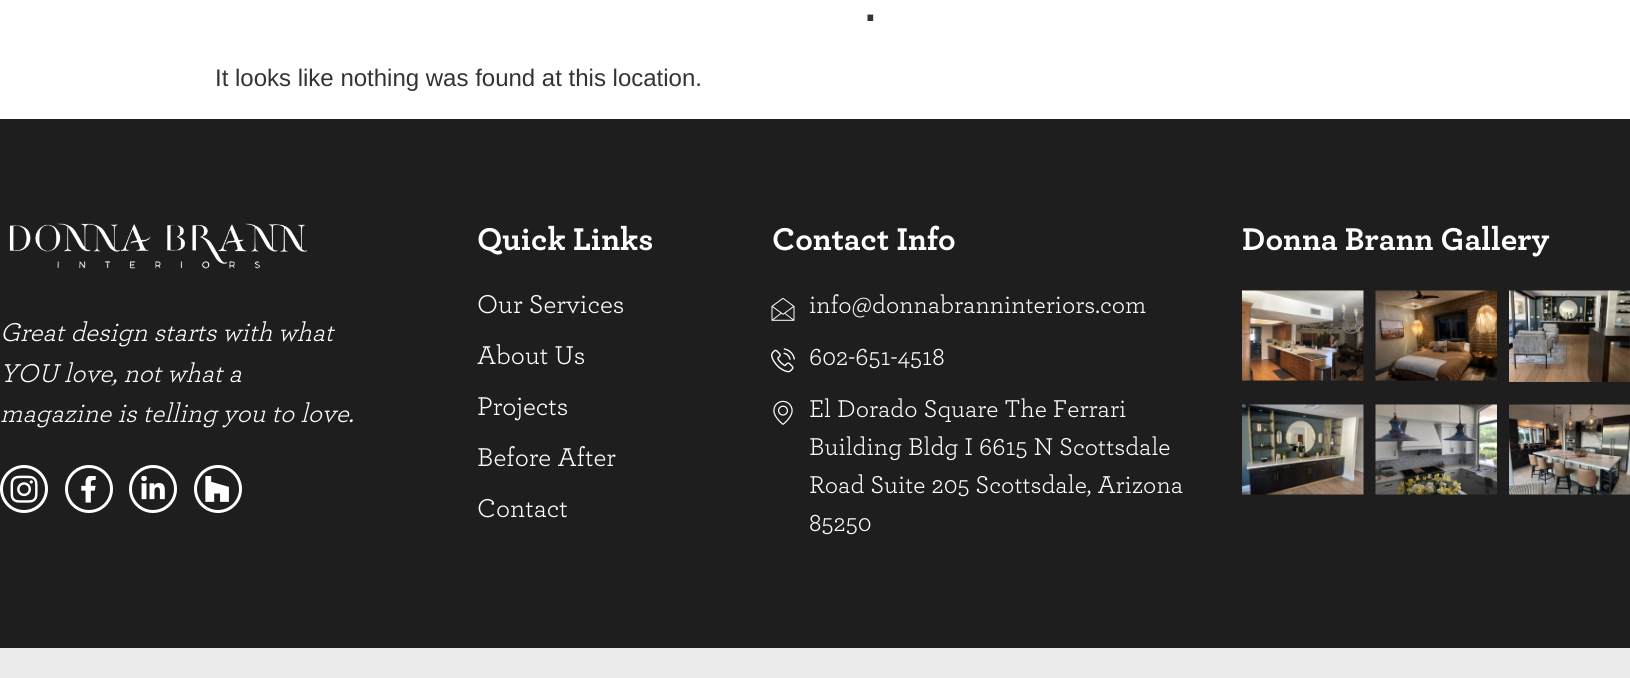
#include <cairo.h>
#include <math.h>
#include <stddef.h>

typedef struct { const char *family; double size; int italic, bold; unsigned color; } style_t;
static cairo_t *ctx;

static void ink(unsigned color) {
    cairo_set_source_rgb(ctx, (color >> 16) / 255.0, (color >> 8 & 255) / 255.0, (color & 255) / 255.0);
}

static void write(double x, double y, const char *s, const style_t *st) {
    cairo_select_font_face(ctx, st->family, st->italic ? CAIRO_FONT_SLANT_ITALIC : CAIRO_FONT_SLANT_NORMAL,
        st->bold ? CAIRO_FONT_WEIGHT_BOLD : CAIRO_FONT_WEIGHT_NORMAL);
    cairo_set_font_size(ctx, st->size);
    ink(st->color);
    cairo_move_to(ctx, x, y);
    cairo_show_text(ctx, s);
}

static void block(double x, double y, double w, double h, unsigned color) {
    ink(color);
    cairo_rectangle(ctx, x, y, w, h);
    cairo_fill(ctx);
}

static void paste(const char *path, double x, double y, double w, double h) {
    cairo_surface_t *image = cairo_image_surface_create_from_png(path);
    cairo_save(ctx);
    cairo_set_source_surface(ctx, image, x, y);
    cairo_rectangle(ctx, x, y, w, h);
    cairo_fill(ctx);
    cairo_restore(ctx);
    cairo_surface_destroy(image);
}

static const style_t s1 = {"Liberation Sans", 60, 0, 0, 0x333333};
static const style_t s2 = {"Liberation Sans", 24, 0, 0, 0x333333};
static const style_t s3 = {"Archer", 33, 0, 1, 0xffffff};
static const style_t s4 = {"Archer", 27, 0, 0, 0xffffff};
static const style_t s5 = {"Archer", 25.5, 0, 0, 0xffffff};
static const style_t s6 = {"Archer", 27, 1, 0, 0xffffff};

int main(void) {
    cairo_surface_t *surface = cairo_image_surface_create(CAIRO_FORMAT_RGB24, 1630, 678);
    ctx = cairo_create(surface);
    cairo_font_options_t *options = cairo_font_options_create();
    cairo_font_options_set_hint_metrics(options, CAIRO_HINT_METRICS_OFF);
    cairo_font_options_set_hint_style(options, CAIRO_HINT_STYLE_NONE);
    cairo_set_font_options(ctx, options);
    cairo_set_miter_limit(ctx, 4);
    ink(0xffffff);
    cairo_paint(ctx);
    write(862, 21, ".", &s1);
    write(215, 86, "It looks like nothing was found at this location.", &s2);
    block(0, 119, 1630, 529, 0x1e1e1e);
    write(477, 250, "Quick Links", &s3);
    write(477, 313, "Our Services", &s4);
    write(477, 364, "About Us", &s4);
    write(477, 415, "Projects", &s4);
    write(477, 466, "Before After", &s4);
    write(477, 517, "Contact", &s4);
    write(772, 250, "Contact Info", &s3);
    paste("pic1.png", 771, 297, 24, 24);
    write(809, 313, "info@donnabranninteriors.com", &s5);
    paste("pic2.png", 771, 348, 24, 25);
    write(809, 365, "602-651-4518", &s5);
    paste("pic3.png", 773, 400, 20, 25);
    write(809, 417, "El Dorado Square The Ferrari", &s5);
    write(809, 455, "Building Bldg I 6615 N Scottsdale", &s5);
    write(809, 493, "Road Suite 205 Scottsdale, Arizona", &s5);
    write(809, 531, "85250", &s5);
    write(1242, 250, "Donna Brann Gallery", &s3);
    paste("pic4.png", 1242, 290, 122, 91);
    paste("pic5.png", 1375, 290, 122, 91);
    paste("pic6.png", 1509, 290, 121, 92);
    paste("pic7.png", 1242, 404, 122, 91);
    paste("pic8.png", 1375, 404, 122, 91);
    paste("pic9.png", 1509, 404, 121, 91);
    paste("pic10.png", 9, 223, 299, 47);
    write(0, 341, "Great design starts with what", &s6);
    write(0, 382, "YOU love, not what a", &s6);
    write(0, 422, "magazine is telling you to love.", &s6);
    cairo_new_path(ctx);
    cairo_arc(ctx, 24, 489, 22.5, 0, 2 * M_PI);
    cairo_set_line_width(ctx, 3);
    cairo_stroke(ctx);
    paste("pic11.png", 10, 475, 28, 28);
    cairo_arc(ctx, 89, 489, 22.5, 0, 2 * M_PI);
    cairo_stroke(ctx);
    paste("pic12.png", 81, 476, 15, 27);
    cairo_arc(ctx, 153, 489, 22.5, 0, 2 * M_PI);
    cairo_stroke(ctx);
    paste("pic13.png", 141, 476, 24, 24);
    cairo_arc(ctx, 218, 489, 22.5, 0, 2 * M_PI);
    cairo_stroke(ctx);
    paste("pic14.png", 205, 476, 24, 26);
    block(0, 648, 1630, 30, 0xebebeb);
    cairo_surface_write_to_png(surface, "screenshot.png");
    cairo_font_options_destroy(options);
    cairo_destroy(ctx);
    cairo_surface_destroy(surface);
    return 0;
}
